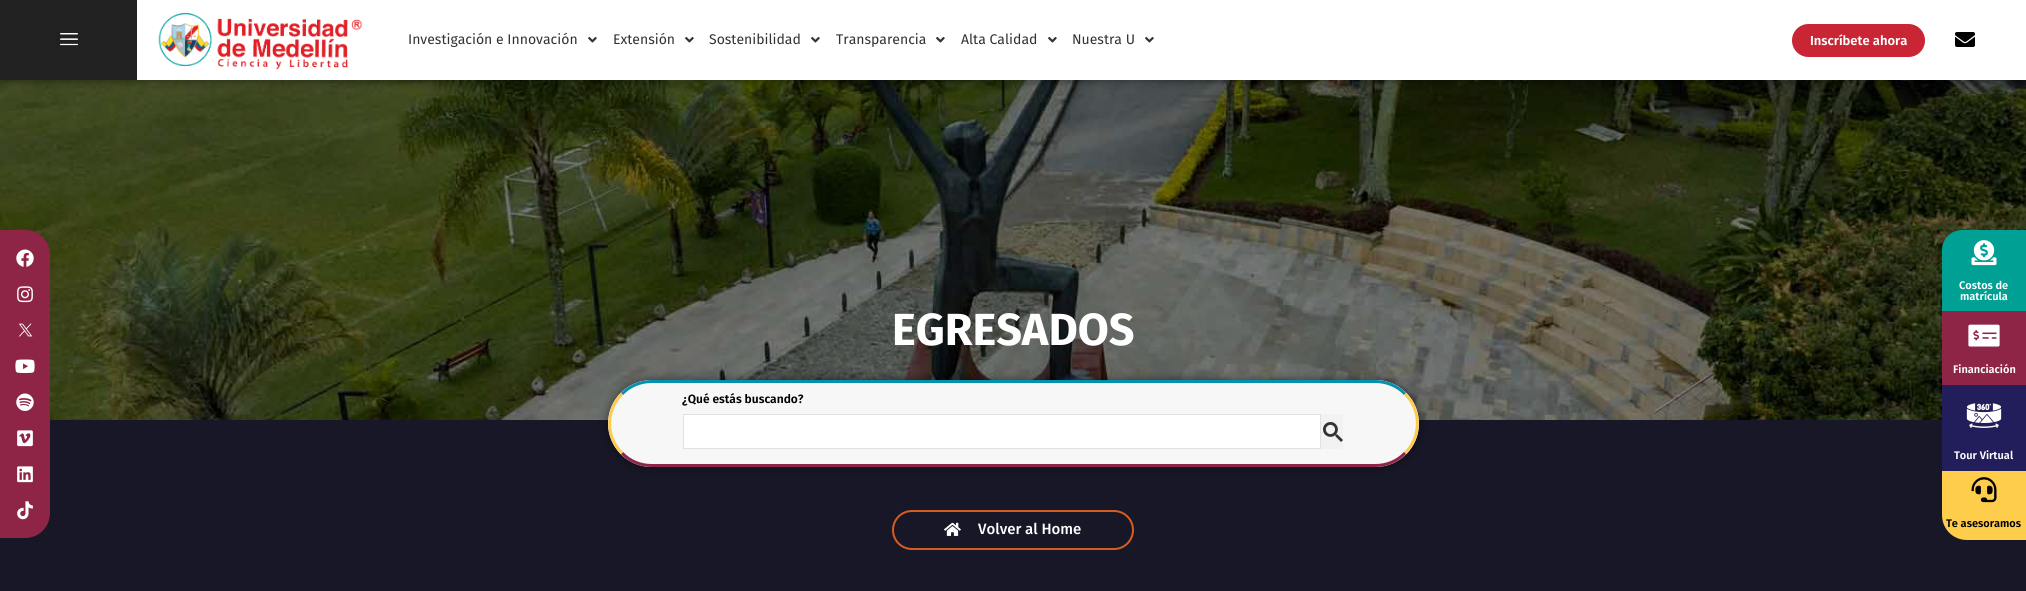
#include <cairo.h>
#include <math.h>
#include <stddef.h>

typedef struct { const char *family; double size; int italic, bold; unsigned color; } style_t;
static cairo_t *ctx;

static void ink(unsigned color) {
    cairo_set_source_rgb(ctx, (color >> 16) / 255.0, (color >> 8 & 255) / 255.0, (color & 255) / 255.0);
}

static void write(double x, double y, const char *s, const style_t *st) {
    cairo_select_font_face(ctx, st->family, st->italic ? CAIRO_FONT_SLANT_ITALIC : CAIRO_FONT_SLANT_NORMAL,
        st->bold ? CAIRO_FONT_WEIGHT_BOLD : CAIRO_FONT_WEIGHT_NORMAL);
    cairo_set_font_size(ctx, st->size);
    ink(st->color);
    cairo_move_to(ctx, x, y);
    cairo_show_text(ctx, s);
}

static void block(double x, double y, double w, double h, unsigned color) {
    ink(color);
    cairo_rectangle(ctx, x, y, w, h);
    cairo_fill(ctx);
}

static void round_path(double x, double y, double w, double h, double r) {
    cairo_new_sub_path(ctx);
    cairo_arc(ctx, x + w - r, y + h - r, r, 0, M_PI / 2);
    cairo_arc(ctx, x + r, y + h - r, r, M_PI / 2, M_PI);
    cairo_arc(ctx, x + r, y + r, r, M_PI, 1.5 * M_PI);
    cairo_arc(ctx, x + w - r, y + r, r, 1.5 * M_PI, 2 * M_PI);
    cairo_close_path(ctx);
}

static void blur_box(double x, double y, double w, double h, double r, double blur, double alpha) {
    cairo_push_group_with_content(ctx, CAIRO_CONTENT_ALPHA);
    cairo_set_operator(ctx, CAIRO_OPERATOR_SOURCE);
    for (int i = 15; i >= -15 && fmin(w, h) + blur * i / 3 > 0; i -= 2) {
        double e = blur * i / 6;
        cairo_set_source_rgba(ctx, 0, 0, 0, alpha * erfc((i - 1) / 8.5) / 2);
        round_path(x - e, y - e, w + 2 * e, h + 2 * e, fmax(0, fmin(r + e + blur * .6, fmin(w, h) / 2 + e)));
        cairo_fill(ctx);
    }
    cairo_pattern_t *soft = cairo_pop_group(ctx);
    cairo_mask(ctx, soft);
    cairo_pattern_destroy(soft);
}

static void paste(const char *path, double x, double y, double w, double h) {
    cairo_surface_t *image = cairo_image_surface_create_from_png(path);
    cairo_save(ctx);
    cairo_set_source_surface(ctx, image, x, y);
    cairo_rectangle(ctx, x, y, w, h);
    cairo_fill(ctx);
    cairo_restore(ctx);
    cairo_surface_destroy(image);
}

static const style_t s1 = {"Fira Sans", 14, 0, 0, 0x323232};
static const style_t s2 = {"Fira Sans SemiBold", 13, 0, 0, 0xffffff};
static const style_t s3 = {"Fira Sans", 45, 0, 1, 0xffffff};
static const style_t s4 = {"Fira Sans SemiBold", 12, 0, 0, 0x000000};
static const style_t s5 = {"Fira Sans Medium", 15, 0, 0, 0xffffff};
static const style_t s6 = {"Fira Sans SemiBold", 11, 0, 0, 0xffffff};
static const style_t s7 = {"Fira Sans SemiBold", 11, 0, 0, 0x000000};

int main(void) {
    cairo_surface_t *surface = cairo_image_surface_create(CAIRO_FORMAT_RGB24, 2026, 591);
    ctx = cairo_create(surface);
    cairo_font_options_t *options = cairo_font_options_create();
    cairo_font_options_set_hint_metrics(options, CAIRO_HINT_METRICS_OFF);
    cairo_font_options_set_hint_style(options, CAIRO_HINT_STYLE_NONE);
    cairo_set_font_options(ctx, options);
    cairo_set_miter_limit(ctx, 4);
    ink(0xffffff);
    cairo_paint(ctx);
    paste("pic5.png", 0, 80, 2026, 340);
    cairo_save(ctx);
    cairo_rectangle(ctx, 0, 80, 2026, 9);
    cairo_clip(ctx);
    ink(0x000000);
    blur_box(0, 0, 2026, 80, 0, 5, 0.5);
    cairo_restore(ctx);
    block(0, 0, 137, 80, 0x212121);
    paste("pic1.png", 60, 33, 18, 13);
    paste("pic2.png", 158, 12, 205, 58);
    write(408, 44, "Investigación e Innovación", &s1);
    paste("pic3.png", 588, 37, 9, 6);
    write(613, 44, "Extensión", &s1);
    paste("pic3.png", 685, 37, 9, 6);
    write(709, 44, "Sostenibilidad", &s1);
    paste("pic3.png", 811, 37, 9, 6);
    write(836, 44, "Transparencia", &s1);
    paste("pic3.png", 936, 37, 9, 6);
    write(961, 44, "Alta Calidad", &s1);
    paste("pic3.png", 1048, 37, 9, 6);
    write(1072, 44, "Nuestra U", &s1);
    paste("pic3.png", 1145, 37, 9, 6);
    ink(0xc92534);
    round_path(1792, 24, 133, 33, 16.5);
    cairo_fill(ctx);
    write(1810, 45, "Inscríbete ahora", &s2);
    paste("pic4.png", 1955, 32, 20, 15);
    write(892, 345, "EGRESADOS", &s3);
    block(0, 420, 2026, 171, 0x181727);
    ink(0x000000);
    blur_box(608, 380, 811, 87, 43.5, 5, 0.5);
    ink(0xf7f7f7);
    round_path(608, 380, 811, 87, 43.5);
    cairo_fill(ctx);
    cairo_new_path(ctx);
    cairo_move_to(ctx, 622, 394);
    cairo_curve_to(ctx, 629.5, 386, 640.5, 381.5, 651.5, 381.5);
    cairo_line_to(ctx, 1375.5, 381.5);
    cairo_curve_to(ctx, 1386.5, 381.5, 1397.5, 386, 1405, 394);
    ink(0x0391ad);
    cairo_set_line_width(ctx, 3);
    cairo_stroke(ctx);
    cairo_new_path(ctx);
    cairo_move_to(ctx, 1405, 394);
    cairo_curve_to(ctx, 1421.5, 410, 1421.5, 437, 1405, 453);
    ink(0xfecb4c);
    cairo_stroke(ctx);
    cairo_new_path(ctx);
    cairo_move_to(ctx, 1405, 453);
    cairo_curve_to(ctx, 1397.5, 461, 1386.5, 465.5, 1375.5, 465.5);
    cairo_line_to(ctx, 651.5, 465.5);
    cairo_curve_to(ctx, 640.5, 465.5, 629.5, 461, 622, 453);
    ink(0x8e2546);
    cairo_stroke(ctx);
    cairo_new_path(ctx);
    cairo_move_to(ctx, 622, 453);
    cairo_curve_to(ctx, 605.5, 437, 605.5, 410, 622, 394);
    ink(0xfecb4c);
    cairo_stroke(ctx);
    write(682, 403, "¿Qué estás buscando?", &s4);
    ink(0xffffff);
    cairo_rectangle(ctx, 683.5, 414.5, 637, 34);
    cairo_fill_preserve(ctx);
    ink(0xdfe1e5);
    cairo_set_line_width(ctx, 1);
    cairo_stroke(ctx);
    block(1321, 414, 22, 35, 0xf2f2f2);
    paste("pic6.png", 1323, 422, 20, 20);
    round_path(893, 511, 240, 38, 19);
    ink(0xd65d21);
    cairo_set_line_width(ctx, 2);
    cairo_stroke(ctx);
    paste("pic7.png", 944, 522, 17, 14);
    write(978, 534, "Volver al Home", &s5);
    ink(0x8e2546);
    cairo_new_path(ctx);
    cairo_move_to(ctx, 0, 230);
    cairo_line_to(ctx, 25, 230);
    cairo_curve_to(ctx, 39, 230, 50, 241, 50, 255);
    cairo_line_to(ctx, 50, 513);
    cairo_curve_to(ctx, 50, 527, 39, 538, 25, 538);
    cairo_line_to(ctx, 0, 538);
    cairo_close_path(ctx);
    cairo_fill(ctx);
    paste("pic8.png", 16, 249, 18, 18);
    paste("pic9.png", 17, 286, 16, 17);
    paste("pic10.png", 18, 323, 15, 14);
    paste("pic11.png", 15, 359, 20, 14);
    paste("pic12.png", 16, 393, 18, 18);
    paste("pic13.png", 17, 430, 16, 17);
    paste("pic14.png", 17, 466, 16, 17);
    paste("pic15.png", 17, 501, 16, 19);
    ink(0x00a094);
    cairo_new_path(ctx);
    cairo_move_to(ctx, 1962, 230);
    cairo_line_to(ctx, 2026, 230);
    cairo_line_to(ctx, 2026, 312);
    cairo_line_to(ctx, 1942, 312);
    cairo_line_to(ctx, 1942, 250);
    cairo_curve_to(ctx, 1942, 239, 1951, 230, 1962, 230);
    cairo_close_path(ctx);
    cairo_fill(ctx);
    paste("pic16.png", 1971, 240, 26, 26);
    write(1959, 289, "Costos de", &s6);
    write(1960, 300, "matrícula", &s6);
    block(1942, 311, 84, 74, 0x8e2546);
    paste("pic17.png", 1968, 324, 32, 23);
    write(1953, 373, "Financiación", &s6);
    ink(0xfecd4c);
    cairo_new_path(ctx);
    cairo_move_to(ctx, 1942, 467);
    cairo_line_to(ctx, 2026, 467);
    cairo_line_to(ctx, 2026, 540);
    cairo_line_to(ctx, 1967, 540);
    cairo_curve_to(ctx, 1953, 540, 1942, 529, 1942, 515);
    cairo_close_path(ctx);
    cairo_fill(ctx);
    block(1942, 385, 84, 86, 0x221e5b);
    paste("pic18.png", 1966, 403, 36, 25);
    write(1954, 459, "Tour Virtual", &s6);
    paste("pic19.png", 1971, 477, 26, 26);
    write(1946, 527, "Te asesoramos", &s7);
    cairo_surface_write_to_png(surface, "screenshot.png");
    cairo_font_options_destroy(options);
    cairo_destroy(ctx);
    cairo_surface_destroy(surface);
    return 0;
}
